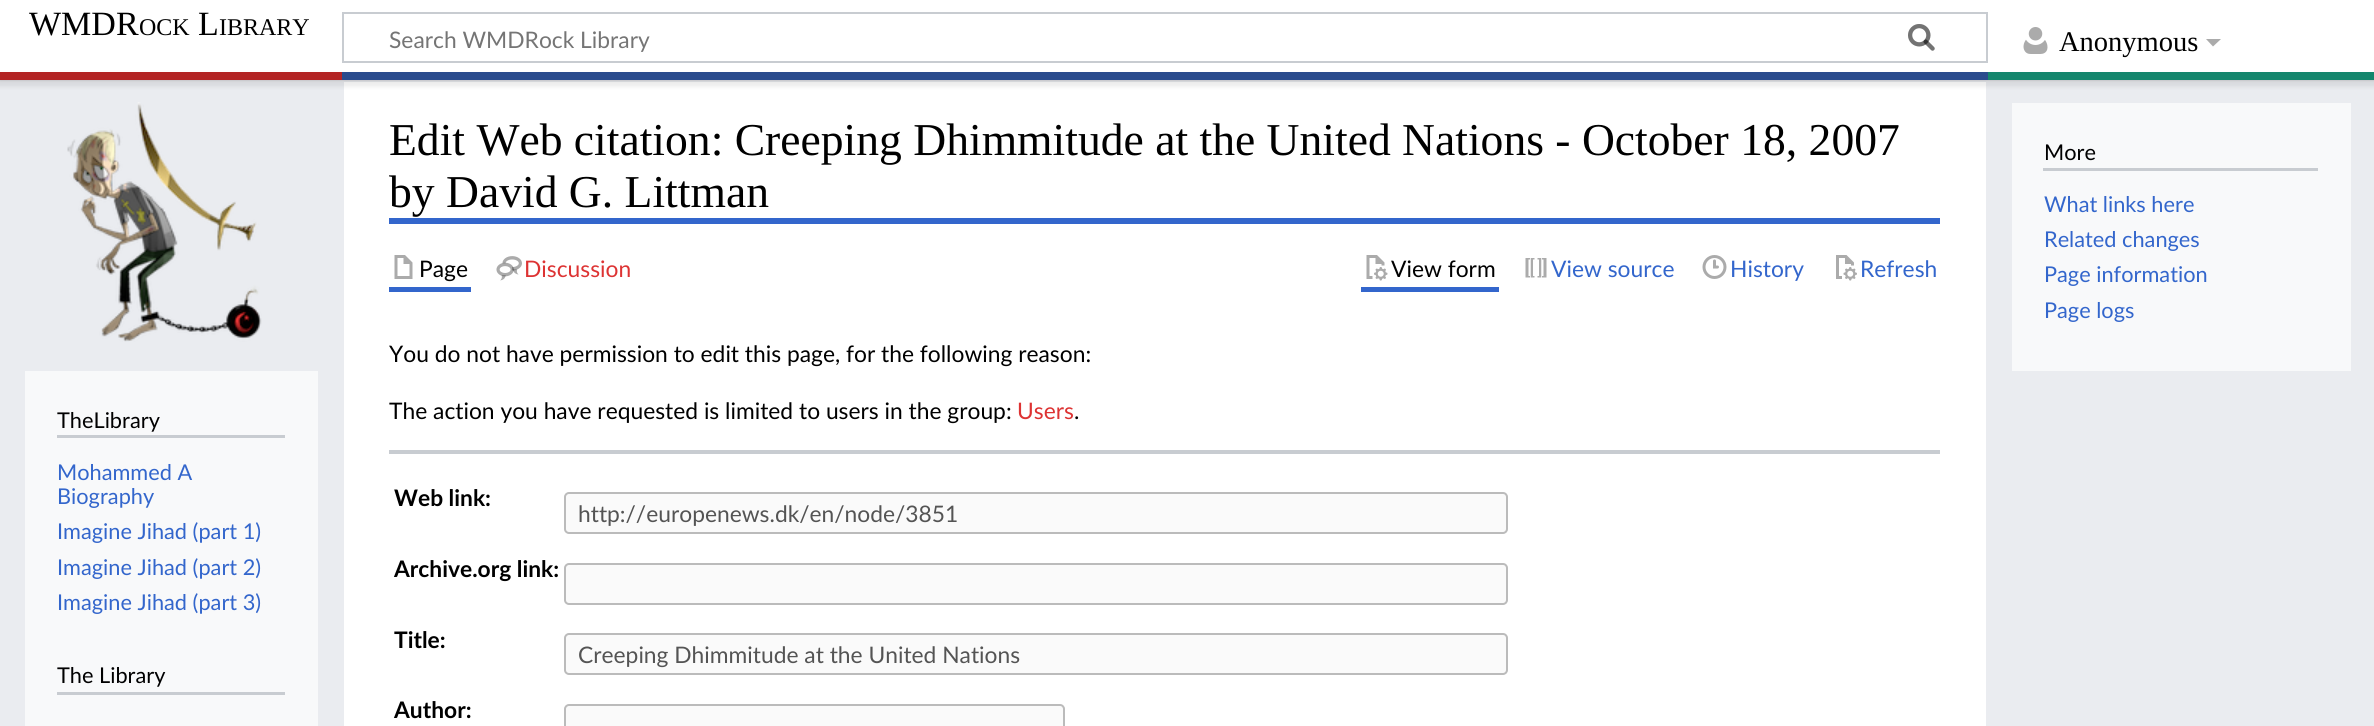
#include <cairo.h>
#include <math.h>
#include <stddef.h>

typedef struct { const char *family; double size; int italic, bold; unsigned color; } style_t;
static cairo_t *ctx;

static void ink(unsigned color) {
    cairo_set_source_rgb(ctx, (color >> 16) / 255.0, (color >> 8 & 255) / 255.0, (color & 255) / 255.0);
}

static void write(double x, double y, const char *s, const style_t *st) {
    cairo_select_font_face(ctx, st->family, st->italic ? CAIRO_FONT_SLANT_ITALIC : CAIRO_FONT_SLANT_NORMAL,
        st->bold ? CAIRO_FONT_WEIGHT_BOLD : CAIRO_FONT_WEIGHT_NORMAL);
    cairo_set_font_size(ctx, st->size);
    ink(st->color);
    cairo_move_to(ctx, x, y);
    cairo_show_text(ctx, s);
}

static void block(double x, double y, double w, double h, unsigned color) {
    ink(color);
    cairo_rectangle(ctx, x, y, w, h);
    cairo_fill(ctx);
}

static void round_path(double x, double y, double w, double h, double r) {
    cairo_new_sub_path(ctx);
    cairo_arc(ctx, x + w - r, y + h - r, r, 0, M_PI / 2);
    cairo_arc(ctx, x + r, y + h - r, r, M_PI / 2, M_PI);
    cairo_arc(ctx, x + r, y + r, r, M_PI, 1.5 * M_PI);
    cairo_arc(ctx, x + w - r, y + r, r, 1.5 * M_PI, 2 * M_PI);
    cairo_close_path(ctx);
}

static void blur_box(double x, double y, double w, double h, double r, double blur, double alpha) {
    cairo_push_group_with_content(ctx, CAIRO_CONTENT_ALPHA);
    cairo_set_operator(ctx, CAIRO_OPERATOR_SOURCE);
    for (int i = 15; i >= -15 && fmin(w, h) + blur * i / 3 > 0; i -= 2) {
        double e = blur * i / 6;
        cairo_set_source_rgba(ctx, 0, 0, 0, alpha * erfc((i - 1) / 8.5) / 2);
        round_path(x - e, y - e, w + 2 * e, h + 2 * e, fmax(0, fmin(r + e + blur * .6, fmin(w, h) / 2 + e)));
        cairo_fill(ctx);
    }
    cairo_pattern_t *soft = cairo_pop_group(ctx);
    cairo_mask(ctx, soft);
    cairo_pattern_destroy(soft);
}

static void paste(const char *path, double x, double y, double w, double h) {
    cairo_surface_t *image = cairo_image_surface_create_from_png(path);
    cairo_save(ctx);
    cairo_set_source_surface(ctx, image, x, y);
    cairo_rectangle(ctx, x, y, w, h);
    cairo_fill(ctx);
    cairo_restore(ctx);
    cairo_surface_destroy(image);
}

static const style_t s1 = {"Liberation Serif", 34, 0, 0, 0x000000};
static const style_t s2 = {"Liberation Serif", 24, 0, 0, 0x000000};
static const style_t s3 = {"Lato", 22.8, 0, 0, 0x757575};
static const style_t s4 = {"Liberation Serif", 28.5, 0, 0, 0x000000};
static const style_t s5 = {"Liberation Serif", 45.6, 0, 0, 0x000000};
static const style_t s6 = {"Lato", 22.8, 0, 0, 0x000000};
static const style_t s7 = {"Lato", 22.8, 0, 0, 0xdd3333};
static const style_t s8 = {"Lato", 22.8, 0, 0, 0x3366cc};
static const style_t s9 = {"Lato", 22.8, 0, 1, 0x000000};
static const style_t s10 = {"Lato", 22.8, 0, 0, 0x545454};
static const style_t s11 = {"Lato", 21.75, 0, 0, 0x000000};
static const style_t s12 = {"Lato", 21.75, 0, 0, 0x3366cc};

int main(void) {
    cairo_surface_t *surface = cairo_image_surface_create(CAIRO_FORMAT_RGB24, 2374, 726);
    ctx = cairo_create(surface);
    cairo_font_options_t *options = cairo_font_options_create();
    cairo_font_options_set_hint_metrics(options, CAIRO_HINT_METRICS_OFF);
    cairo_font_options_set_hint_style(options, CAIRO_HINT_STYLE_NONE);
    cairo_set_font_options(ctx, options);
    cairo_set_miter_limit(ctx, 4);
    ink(0xeaecf0);
    cairo_paint(ctx);
    block(344, 82, 1642, 644, 0xffffff);
    ink(0x000000);
    blur_box(0, 72, 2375, 8, 0, 1.5, 0.2);
    blur_box(-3, 74, 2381, 13, 0, 2, 0.07);
    block(0, 0, 2374, 72, 0xffffff);
    write(29, 35, "WMDR", &s1);
    write(139, 35, "OCK", &s2);
    write(198, 35, "L", &s1);
    write(219, 35, "IBRARY", &s2);
    cairo_rectangle(ctx, 343, 13, 1644, 49);
    ink(0xc8ccd1);
    cairo_stroke(ctx);
    paste("pic1.png", 1908, 24, 27, 27);
    write(389, 48, "Search WMDRock Library", &s3);
    paste("pic2.png", 1908, 24, 27, 27);
    paste("pic3.png", 2023, 27, 25, 27);
    write(2059, 51, "Anonymous", &s4);
    ink(0xababab);
    cairo_new_path(ctx);
    cairo_move_to(ctx, 2221, 39);
    cairo_line_to(ctx, 2213, 46.5);
    cairo_line_to(ctx, 2206, 39);
    cairo_close_path(ctx);
    cairo_fill(ctx);
    block(0, 72, 342, 8, 0xb32424);
    block(342, 72, 1646, 8, 0x2a4b8d);
    block(1988, 72, 386, 8, 0x14866d);
    block(389, 218, 1551, 6, 0x3366cc);
    write(389, 155, "Edit Web citation: Creeping Dhimmitude at the United Nations - October 18, 2007", &s5);
    write(389, 207, "by David G. Littman", &s5);
    block(389, 287, 82, 5, 0x3366cc);
    paste("pic4.png", 394, 255, 19, 24);
    write(419, 277, "Page", &s6);
    paste("pic5.png", 496, 256, 26, 25);
    write(524, 277, "Discussion", &s7);
    block(1361, 287, 138, 5, 0x3366cc);
    paste("pic6.png", 1366, 255, 22, 26);
    write(1391, 277, "View form", &s6);
    paste("pic7.png", 1525, 258, 22, 20);
    write(1551, 277, "View source", &s8);
    paste("pic8.png", 1702, 255, 25, 24);
    write(1730, 277, "History", &s8);
    paste("pic9.png", 1836, 255, 21, 26);
    write(1860, 277, "Refresh", &s8);
    write(389, 362, "You do not have permission to edit this page, for the following reason:", &s6);
    write(389, 419, "The action you have requested is limited to users in the group:", &s6);
    write(1017, 419, "Users", &s7);
    write(1074, 419, ".", &s6);
    block(389, 450, 1551, 4, 0xc8ccd1);
    write(394, 506, "Web link:", &s9);
    ink(0xfafafa);
    round_path(565, 493, 942, 40, 4);
    cairo_fill_preserve(ctx);
    ink(0xbbbbbb);
    cairo_stroke(ctx);
    write(578, 522, "http://europenews.dk/en/node/3851", &s10);
    write(394, 577, "Archive.org link:", &s9);
    ink(0xfafafa);
    round_path(565, 564, 942, 40, 4);
    cairo_fill_preserve(ctx);
    ink(0xbbbbbb);
    cairo_stroke(ctx);
    write(394, 648, "Title:", &s9);
    ink(0xfafafa);
    round_path(565, 634, 942, 40, 4);
    cairo_fill_preserve(ctx);
    ink(0xbbbbbb);
    cairo_stroke(ctx);
    write(578, 663, "Creeping Dhimmitude at the United Nations", &s10);
    write(394, 718, "Author:", &s9);
    ink(0xfafafa);
    round_path(565, 705, 499, 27, 4);
    cairo_fill_preserve(ctx);
    ink(0xbbbbbb);
    cairo_stroke(ctx);
    block(2012, 103, 339, 268, 0xf8f9fa);
    block(2043, 168, 275, 3, 0xc8ccd1);
    write(2044, 160, "More", &s11);
    write(2044, 212, "What links here", &s12);
    write(2044, 247, "Related changes", &s12);
    write(2044, 282, "Page information", &s12);
    write(2044, 318, "Page logs", &s12);
    paste("pic10.png", 67, 102, 195, 240);
    block(25, 371, 293, 355, 0xf8f9fa);
    block(57, 435, 228, 3, 0xc8ccd1);
    write(57, 428, "TheLibrary", &s11);
    write(57, 480, "Mohammed A", &s12);
    write(57, 504, "Biography", &s12);
    write(57, 539, "Imagine Jihad (part 1)", &s12);
    write(57, 575, "Imagine Jihad (part 2)", &s12);
    write(57, 610, "Imagine Jihad (part 3)", &s12);
    block(57, 692, 228, 3, 0xc8ccd1);
    write(57, 683, "The Library", &s11);
    cairo_surface_write_to_png(surface, "screenshot.png");
    cairo_font_options_destroy(options);
    cairo_destroy(ctx);
    cairo_surface_destroy(surface);
    return 0;
}
